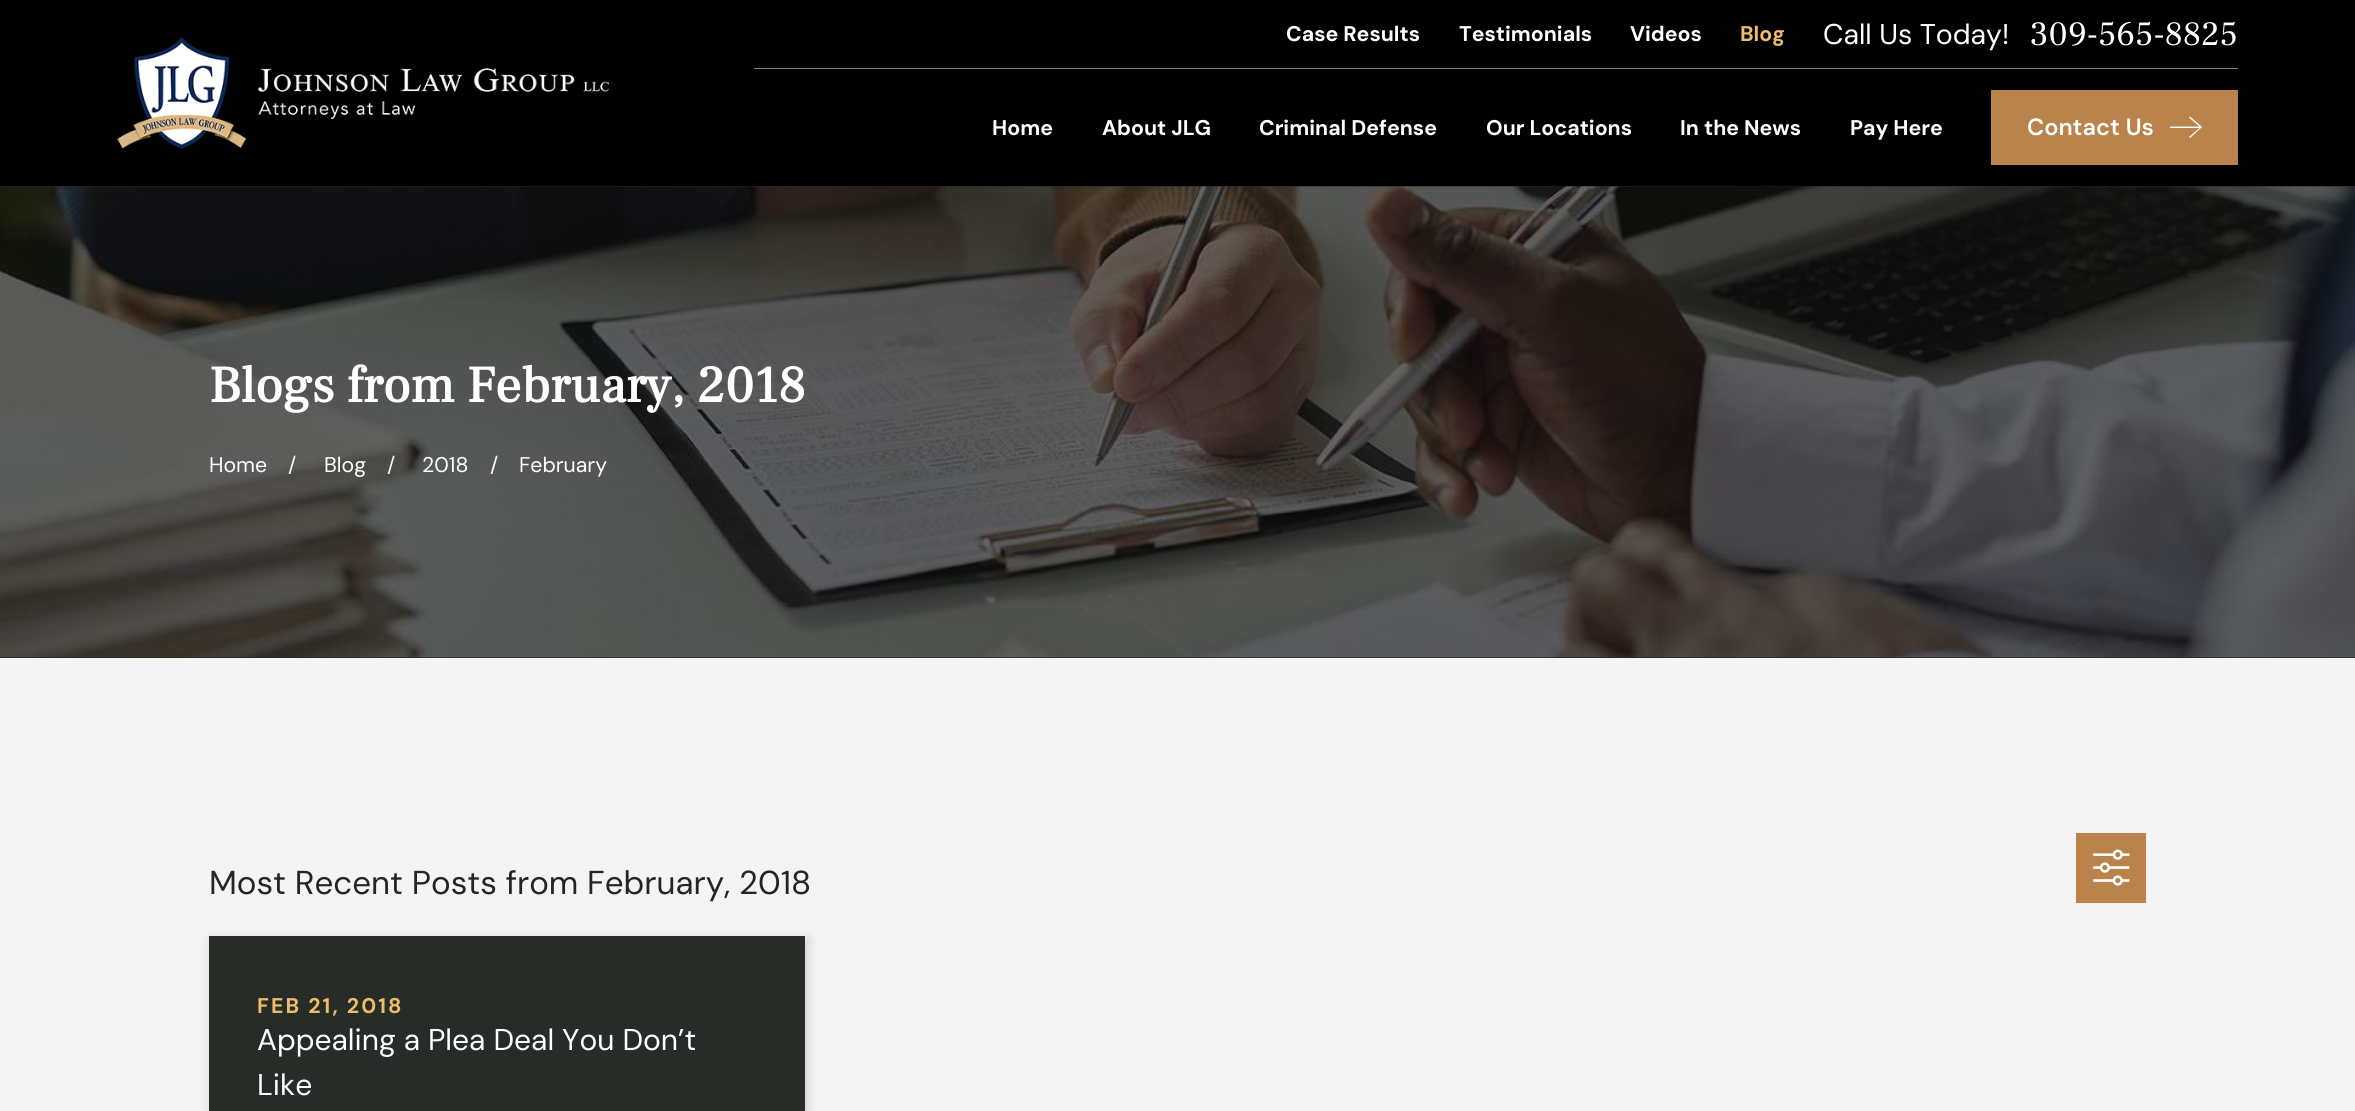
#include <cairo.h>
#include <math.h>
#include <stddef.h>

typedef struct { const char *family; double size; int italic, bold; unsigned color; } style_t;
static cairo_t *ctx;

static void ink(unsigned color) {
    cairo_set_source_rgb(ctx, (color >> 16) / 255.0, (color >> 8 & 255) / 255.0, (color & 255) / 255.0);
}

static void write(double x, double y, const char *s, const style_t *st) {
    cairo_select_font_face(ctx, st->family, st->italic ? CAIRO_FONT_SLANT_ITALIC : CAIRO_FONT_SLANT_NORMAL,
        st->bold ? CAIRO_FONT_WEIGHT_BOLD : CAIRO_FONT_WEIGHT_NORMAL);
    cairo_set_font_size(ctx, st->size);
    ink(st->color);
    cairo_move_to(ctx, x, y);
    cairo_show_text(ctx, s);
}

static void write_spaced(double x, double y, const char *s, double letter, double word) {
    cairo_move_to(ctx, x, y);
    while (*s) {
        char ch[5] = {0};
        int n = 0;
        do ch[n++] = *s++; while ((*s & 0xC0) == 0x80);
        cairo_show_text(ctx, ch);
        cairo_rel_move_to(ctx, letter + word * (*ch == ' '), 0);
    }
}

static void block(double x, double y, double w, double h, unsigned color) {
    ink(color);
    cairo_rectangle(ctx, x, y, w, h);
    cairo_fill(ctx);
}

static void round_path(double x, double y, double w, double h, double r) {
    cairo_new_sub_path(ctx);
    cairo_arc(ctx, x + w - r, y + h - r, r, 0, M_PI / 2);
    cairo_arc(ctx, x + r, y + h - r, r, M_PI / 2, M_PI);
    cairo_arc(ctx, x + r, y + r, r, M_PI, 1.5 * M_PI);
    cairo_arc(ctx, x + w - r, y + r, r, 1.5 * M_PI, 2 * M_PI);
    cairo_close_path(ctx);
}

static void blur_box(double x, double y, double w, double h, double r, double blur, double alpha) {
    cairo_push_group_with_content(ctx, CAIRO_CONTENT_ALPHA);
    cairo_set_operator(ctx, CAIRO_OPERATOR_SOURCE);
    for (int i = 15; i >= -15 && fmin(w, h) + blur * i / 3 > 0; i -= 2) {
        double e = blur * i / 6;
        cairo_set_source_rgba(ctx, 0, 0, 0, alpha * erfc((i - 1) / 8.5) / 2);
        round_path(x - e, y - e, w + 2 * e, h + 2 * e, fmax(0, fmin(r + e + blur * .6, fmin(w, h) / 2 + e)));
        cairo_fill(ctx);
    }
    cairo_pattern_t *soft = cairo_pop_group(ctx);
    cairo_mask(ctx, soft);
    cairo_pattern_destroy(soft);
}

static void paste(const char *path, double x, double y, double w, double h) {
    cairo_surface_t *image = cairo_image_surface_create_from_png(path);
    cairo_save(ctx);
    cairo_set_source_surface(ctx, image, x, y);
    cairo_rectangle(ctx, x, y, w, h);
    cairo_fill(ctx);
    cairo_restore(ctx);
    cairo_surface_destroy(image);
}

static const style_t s1 = {"DM Sans", 21.25, 0, 1, 0xffffff};
static const style_t s2 = {"DM Sans", 21.25, 0, 1, 0xedbe67};
static const style_t s3 = {"DM Sans", 28.5, 0, 0, 0xffffff};
static const style_t s4 = {"Frank Ruhl Libre", 34, 0, 0, 0xffffff};
static const style_t s5 = {"DM Sans SemiBold", 23.5, 0, 0, 0xffffff};
static const style_t s6 = {"Frank Ruhl Libre", 51.5, 0, 1, 0xffffff};
static const style_t s7 = {"DM Sans", 21.25, 0, 0, 0xffffff};
static const style_t s8 = {"DM Sans", 33.1, 0, 0, 0x232724};
static const style_t s9 = {"DM Sans", 30, 0, 0, 0xffffff};

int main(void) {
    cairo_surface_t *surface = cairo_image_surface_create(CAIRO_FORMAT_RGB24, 2355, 1111);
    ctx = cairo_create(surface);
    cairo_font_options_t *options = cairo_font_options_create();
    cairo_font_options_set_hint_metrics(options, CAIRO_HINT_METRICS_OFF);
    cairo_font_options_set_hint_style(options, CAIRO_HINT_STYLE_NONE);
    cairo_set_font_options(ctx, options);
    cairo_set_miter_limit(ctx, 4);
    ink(0xf4f4f4);
    cairo_paint(ctx);
    block(0, 0, 2355, 186, 0x000000);
    paste("pic1.png", 117, 37, 492, 112);
    block(754, 68, 1484, 1, 0x808080);
    write(1286, 41, "Case Results", &s1);
    write(1459, 41, "Testimonials", &s1);
    write(1630, 41, "Videos", &s1);
    write(1740, 41, "Blog", &s2);
    write(1823, 44, "Call Us Today!", &s3);
    write(2030, 45, "309-565-8825", &s4);
    write(992, 135, "Home", &s1);
    write(1102, 135, "About JLG", &s1);
    write(1259, 135, "Criminal Defense", &s1);
    write(1486, 135, "Our Locations", &s1);
    write(1680, 135, "In the News", &s1);
    write(1850, 135, "Pay Here", &s1);
    block(1991, 90, 247, 75, 0xba834b);
    write(2027, 135, "Contact Us", &s5);
    cairo_new_path(ctx);
    cairo_move_to(ctx, 2189, 137);
    cairo_line_to(ctx, 2190, 138);
    cairo_line_to(ctx, 2202, 127);
    cairo_line_to(ctx, 2190, 116.5);
    cairo_line_to(ctx, 2189, 117.5);
    cairo_line_to(ctx, 2199.5, 126.5);
    cairo_line_to(ctx, 2170, 126.5);
    cairo_line_to(ctx, 2170, 128);
    cairo_line_to(ctx, 2199.5, 128);
    cairo_close_path(ctx);
    cairo_fill(ctx);
    block(0, 186, 2355, 472, 0x232724);
    paste("pic2.png", 0, 186, 2355, 472);
    write(209, 402, "Blogs from February, 2018", &s6);
    write(209, 472, "Home", &s7);
    write(288, 472, "/", &s7);
    write(324, 472, "Blog", &s7);
    write(387, 472, "/", &s7);
    write(422, 472, "2018", &s7);
    write(490, 472, "/", &s7);
    write(519, 472, "February", &s7);
    write(209, 894, "Most Recent Posts from February, 2018", &s8);
    block(2076, 833, 70, 70, 0xba834b);
    paste("pic3.png", 2093, 849, 37, 37);
    ink(0x000000);
    blur_box(211, 939, 597, 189, 0, 5.5, 0.16);
    block(209, 936, 596, 175, 0x272c28);
    cairo_select_font_face(ctx, "DM Sans", CAIRO_FONT_SLANT_NORMAL, CAIRO_FONT_WEIGHT_BOLD);
    cairo_set_font_size(ctx, 21.25);
    ink(0xedbe67);
    write_spaced(257, 1013, "FEB 21, 2018", 2.1, 0);
    write(257, 1050, "Appealing a Plea Deal You Don’t", &s9);
    write(257, 1095, "Like", &s9);
    cairo_surface_write_to_png(surface, "screenshot.png");
    cairo_font_options_destroy(options);
    cairo_destroy(ctx);
    cairo_surface_destroy(surface);
    return 0;
}
